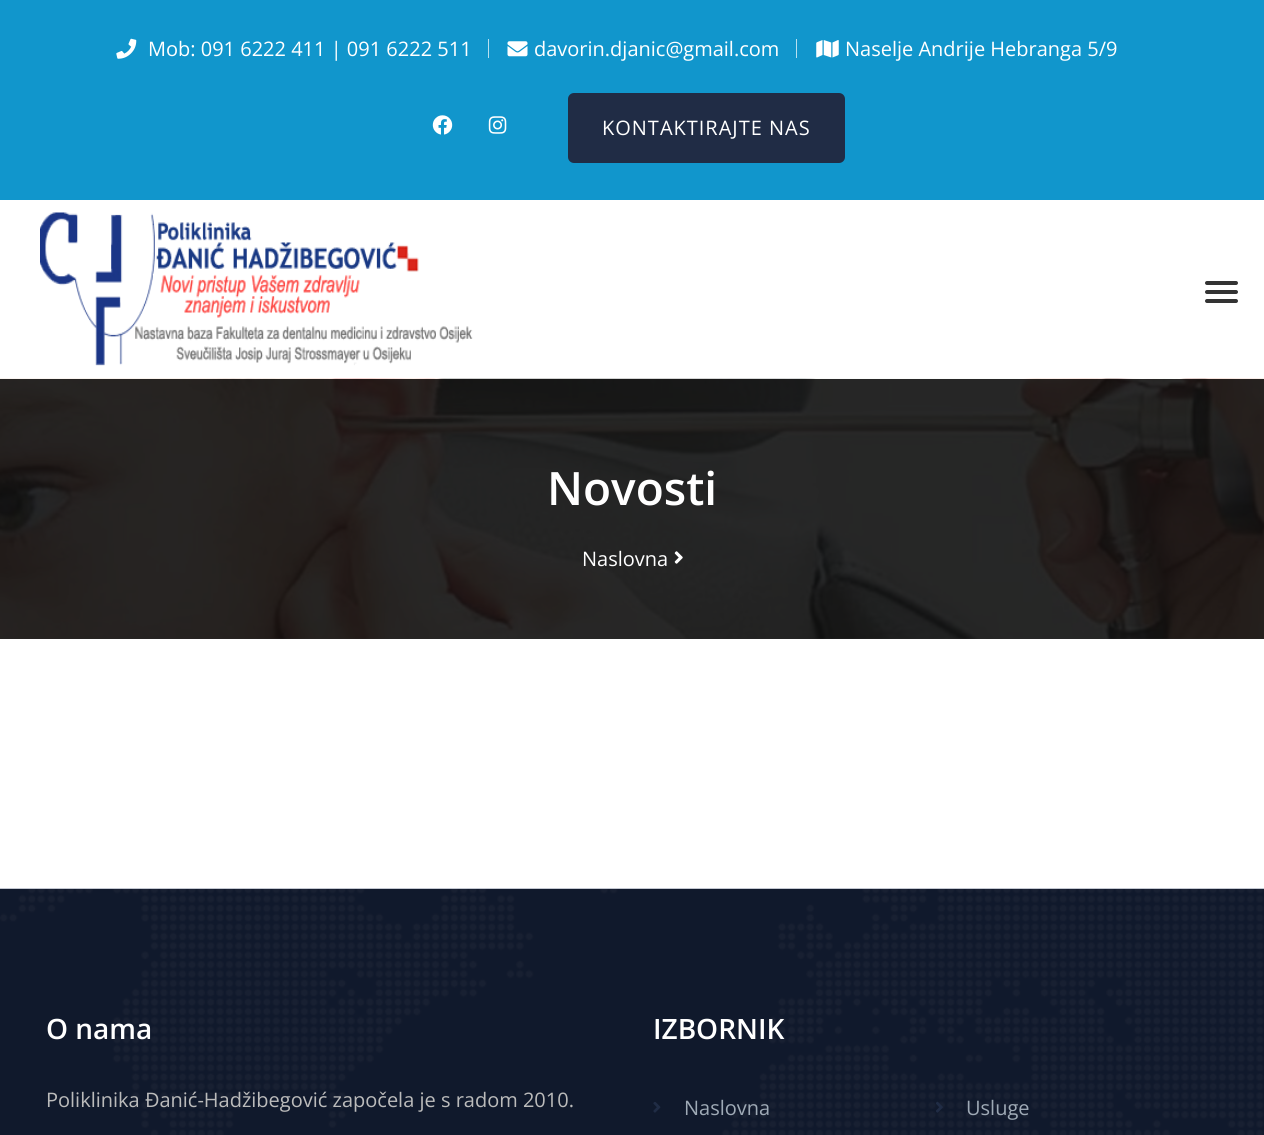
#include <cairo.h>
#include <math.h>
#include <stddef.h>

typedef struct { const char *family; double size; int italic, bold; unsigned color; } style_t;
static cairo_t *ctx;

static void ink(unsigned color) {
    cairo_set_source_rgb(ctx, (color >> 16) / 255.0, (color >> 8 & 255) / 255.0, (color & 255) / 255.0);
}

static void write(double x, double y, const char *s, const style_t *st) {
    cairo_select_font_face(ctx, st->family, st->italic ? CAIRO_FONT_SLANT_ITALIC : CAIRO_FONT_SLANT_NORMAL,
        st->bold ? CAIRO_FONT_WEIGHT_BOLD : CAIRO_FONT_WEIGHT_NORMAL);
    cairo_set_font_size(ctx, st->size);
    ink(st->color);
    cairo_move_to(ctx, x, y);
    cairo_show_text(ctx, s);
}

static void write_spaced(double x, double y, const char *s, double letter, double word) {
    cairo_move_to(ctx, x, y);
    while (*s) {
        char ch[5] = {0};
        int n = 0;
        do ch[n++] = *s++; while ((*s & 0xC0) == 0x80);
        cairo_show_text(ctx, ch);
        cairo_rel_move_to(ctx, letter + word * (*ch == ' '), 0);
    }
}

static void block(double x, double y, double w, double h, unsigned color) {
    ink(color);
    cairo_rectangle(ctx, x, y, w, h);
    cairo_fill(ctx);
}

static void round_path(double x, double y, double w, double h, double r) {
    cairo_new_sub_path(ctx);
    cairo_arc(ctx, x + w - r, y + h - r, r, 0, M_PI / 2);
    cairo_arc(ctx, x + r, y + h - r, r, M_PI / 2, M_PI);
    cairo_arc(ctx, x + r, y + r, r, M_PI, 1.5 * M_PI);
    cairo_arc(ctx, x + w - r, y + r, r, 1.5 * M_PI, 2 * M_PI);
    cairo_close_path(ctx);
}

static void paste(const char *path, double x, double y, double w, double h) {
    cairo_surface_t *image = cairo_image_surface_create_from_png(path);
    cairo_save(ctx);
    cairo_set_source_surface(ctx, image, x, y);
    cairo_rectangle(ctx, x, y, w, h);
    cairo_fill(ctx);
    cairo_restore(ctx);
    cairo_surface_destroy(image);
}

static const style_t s1 = {"Open Sans", 20, 0, 0, 0xffffff};
static const style_t s2 = {"Open Sans SemiBold", 46, 0, 0, 0xffffff};
static const style_t s3 = {"Open Sans SemiBold", 28, 0, 0, 0xffffff};
static const style_t s4 = {"Open Sans", 20, 0, 0, 0xbbbbbb};
static const style_t s5 = {"Open Sans", 20, 0, 0, 0x9faab6};

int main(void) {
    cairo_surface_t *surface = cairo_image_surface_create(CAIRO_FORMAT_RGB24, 1264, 1135);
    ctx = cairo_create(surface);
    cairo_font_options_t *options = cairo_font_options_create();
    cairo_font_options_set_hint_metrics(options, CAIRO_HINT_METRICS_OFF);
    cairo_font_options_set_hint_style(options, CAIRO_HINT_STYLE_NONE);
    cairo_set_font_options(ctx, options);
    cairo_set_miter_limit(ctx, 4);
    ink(0xffffff);
    cairo_paint(ctx);
    block(0, 0, 1264, 200, 0x1196cc);
    paste("pic1.png", 116, 38, 21, 21);
    write(148, 56, "Mob: 091 6222 411 | 091 6222 511", &s1);
    block(488, 39, 1, 19, 0xb8e0f0);
    paste("pic2.png", 507, 41, 21, 16);
    write(534, 56, "davorin.djanic@gmail.com", &s1);
    block(796, 39, 1, 19, 0xb8e0f0);
    paste("pic3.png", 816, 40, 23, 18);
    write(845, 56, "Naselje Andrije Hebranga 5/9", &s1);
    paste("pic4.png", 432, 115, 21, 20);
    paste("pic5.png", 488, 116, 19, 18);
    ink(0x202c45);
    round_path(568, 93, 277, 70, 6);
    cairo_fill(ctx);
    ink(0xffffff);
    write_spaced(602, 135, "KONTAKTIRAJTE NAS", 1, 0);
    paste("pic6.png", 40, 212, 433, 154);
    ink(0x333333);
    round_path(1205, 281, 33, 4, 2);
    cairo_fill(ctx);
    round_path(1205, 290, 33, 4, 2);
    cairo_fill(ctx);
    round_path(1205, 299, 33, 4, 2);
    cairo_fill(ctx);
    paste("pic7.png", 0, 378, 1264, 261);
    cairo_set_source_rgba(ctx, 0.067, 0.067, 0.067, 0.9);
    cairo_rectangle(ctx, 0, 379, 1264, 260);
    cairo_fill(ctx);
    write(547, 505, "Novosti", &s2);
    write(582, 566, "Naslovna", &s1);
    paste("pic8.png", 674, 551, 9, 13);
    paste("pic9.png", 0, 888, 1264, 247);
    write(46, 1039, "O nama", &s3);
    write(46, 1107, "Poliklinika Đanić-Hadžibegović započela je s radom 2010.", &s4);
    write(653, 1039, "IZBORNIK", &s3);
    paste("pic10.png", 653, 1102, 8, 11);
    write(684, 1115, "Naslovna", &s5);
    paste("pic11.png", 936, 1101, 7, 12);
    write(966, 1115, "Usluge", &s5);
    cairo_surface_write_to_png(surface, "screenshot.png");
    cairo_font_options_destroy(options);
    cairo_destroy(ctx);
    cairo_surface_destroy(surface);
    return 0;
}
